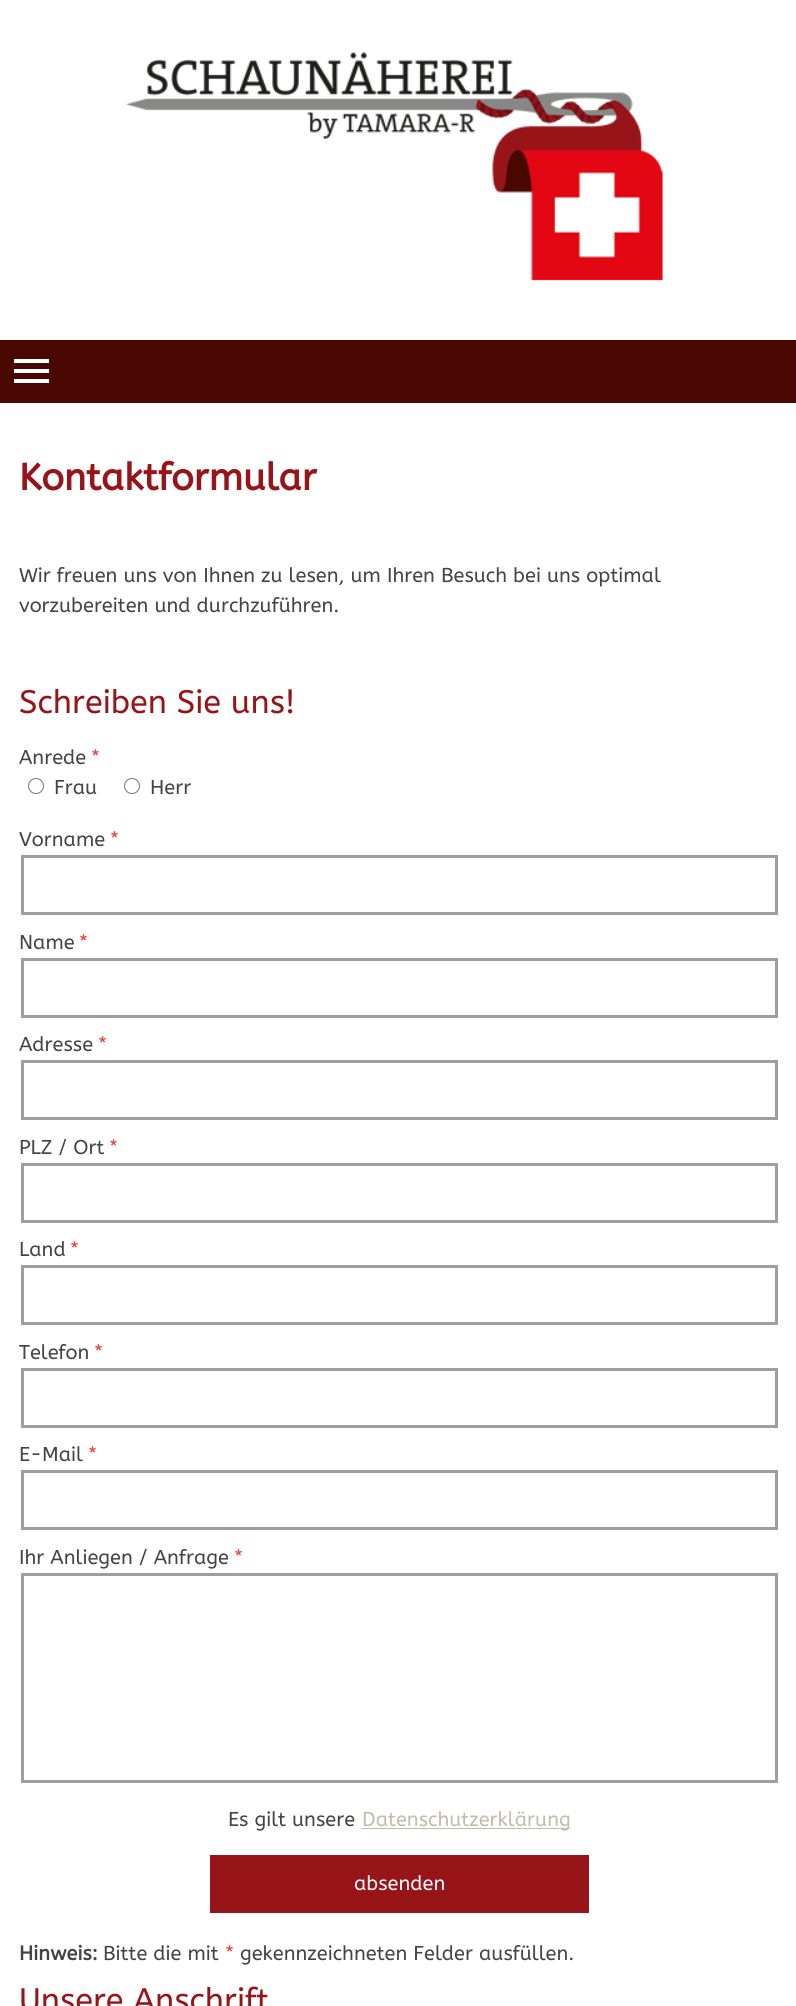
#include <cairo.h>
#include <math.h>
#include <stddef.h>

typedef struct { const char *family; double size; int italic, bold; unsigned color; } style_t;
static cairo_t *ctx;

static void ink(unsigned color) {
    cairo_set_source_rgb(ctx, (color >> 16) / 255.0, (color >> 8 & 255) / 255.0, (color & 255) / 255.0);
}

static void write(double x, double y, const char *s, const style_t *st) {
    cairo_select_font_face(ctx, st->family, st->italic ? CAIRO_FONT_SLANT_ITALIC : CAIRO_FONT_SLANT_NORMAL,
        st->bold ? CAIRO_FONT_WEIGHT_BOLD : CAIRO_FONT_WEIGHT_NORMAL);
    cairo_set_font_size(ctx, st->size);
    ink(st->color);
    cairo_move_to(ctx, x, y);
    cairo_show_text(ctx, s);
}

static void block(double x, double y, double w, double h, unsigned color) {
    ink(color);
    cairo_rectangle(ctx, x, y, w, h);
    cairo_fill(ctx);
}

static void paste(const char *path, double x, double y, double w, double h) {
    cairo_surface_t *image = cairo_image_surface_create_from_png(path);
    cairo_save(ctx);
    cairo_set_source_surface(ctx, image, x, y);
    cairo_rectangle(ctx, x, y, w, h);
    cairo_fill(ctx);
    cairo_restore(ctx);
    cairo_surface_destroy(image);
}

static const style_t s1 = {"ABeeZee", 37.5, 0, 1, 0x971418};
static const style_t s2 = {"ABeeZee", 20, 0, 0, 0x444444};
static const style_t s3 = {"ABeeZee", 32.5, 0, 0, 0x971418};
static const style_t s4 = {"ABeeZee", 20, 0, 0, 0xeb433e};
static const style_t s5 = {"ABeeZee", 20, 0, 0, 0xc5bbab};
static const style_t s6 = {"ABeeZee", 20, 0, 0, 0xffffff};
static const style_t s7 = {"ABeeZee", 20, 0, 1, 0x444444};

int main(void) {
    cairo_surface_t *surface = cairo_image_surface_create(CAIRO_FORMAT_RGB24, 796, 2006);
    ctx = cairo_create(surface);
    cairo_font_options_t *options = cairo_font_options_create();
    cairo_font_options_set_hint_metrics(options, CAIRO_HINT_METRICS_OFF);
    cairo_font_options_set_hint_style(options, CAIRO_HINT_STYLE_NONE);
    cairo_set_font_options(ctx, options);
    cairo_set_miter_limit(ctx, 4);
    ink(0xffffff);
    cairo_paint(ctx);
    paste("pic1.png", 126, 52, 537, 229);
    block(0, 340, 796, 63, 0x480701);
    block(14, 369, 35, 4, 0xffffff);
    block(14, 359, 35, 4, 0xffffff);
    block(14, 379, 35, 4, 0xffffff);
    write(19, 490, "Kontaktformular", &s1);
    write(19, 582, "Wir freuen uns von Ihnen zu lesen, um Ihren Besuch bei uns optimal", &s2);
    write(19, 612, "vorzubereiten und durchzuführen.", &s2);
    write(19, 713, "Schreiben Sie uns!", &s3);
    write(19, 764, "Anrede", &s2);
    write(91, 764, "*", &s4);
    cairo_new_path(ctx);
    cairo_arc(ctx, 36, 786, 7.5, 0, 2 * M_PI);
    ink(0x767676);
    cairo_set_line_width(ctx, 1);
    cairo_stroke(ctx);
    write(54, 794, "Frau", &s2);
    cairo_new_path(ctx);
    cairo_arc(ctx, 132, 786, 7.5, 0, 2 * M_PI);
    ink(0x767676);
    cairo_stroke(ctx);
    write(150, 794, "Herr", &s2);
    write(19, 846, "Vorname", &s2);
    write(110, 846, "*", &s4);
    cairo_rectangle(ctx, 22.5, 856.5, 754, 57);
    ink(0x9d9e9e);
    cairo_set_line_width(ctx, 3);
    cairo_stroke(ctx);
    write(19, 949, "Name", &s2);
    write(79, 949, "*", &s4);
    cairo_rectangle(ctx, 22.5, 959.5, 754, 57);
    ink(0x9d9e9e);
    cairo_stroke(ctx);
    write(19, 1051, "Adresse", &s2);
    write(98, 1051, "*", &s4);
    cairo_rectangle(ctx, 22.5, 1061.5, 754, 57);
    ink(0x9d9e9e);
    cairo_stroke(ctx);
    write(19, 1154, "PLZ / Ort", &s2);
    write(109, 1154, "*", &s4);
    cairo_rectangle(ctx, 22.5, 1164.5, 754, 57);
    ink(0x9d9e9e);
    cairo_stroke(ctx);
    write(19, 1256, "Land", &s2);
    write(70, 1256, "*", &s4);
    cairo_rectangle(ctx, 22.5, 1266.5, 754, 57);
    ink(0x9d9e9e);
    cairo_stroke(ctx);
    write(19, 1359, "Telefon", &s2);
    write(94, 1359, "*", &s4);
    cairo_rectangle(ctx, 22.5, 1369.5, 754, 57);
    ink(0x9d9e9e);
    cairo_stroke(ctx);
    write(19, 1461, "E-Mail", &s2);
    write(88, 1461, "*", &s4);
    cairo_rectangle(ctx, 22.5, 1471.5, 754, 57);
    ink(0x9d9e9e);
    cairo_stroke(ctx);
    write(19, 1564, "Ihr Anliegen / Anfrage", &s2);
    write(234, 1564, "*", &s4);
    cairo_rectangle(ctx, 22.5, 1574.5, 754, 207);
    ink(0x9d9e9e);
    cairo_stroke(ctx);
    write(228, 1826, "Es gilt unsere", &s2);
    block(361, 1828, 209, 1, 0xc5bbab);
    write(362, 1826, "Datenschutzerklärung", &s5);
    block(210, 1855, 379, 58, 0x971418);
    write(354, 1890, "absenden", &s6);
    write(19, 1960, "Hinweis:", &s7);
    write(103, 1960, "Bitte die mit", &s2);
    write(225, 1960, "*", &s4);
    write(240, 1960, "gekennzeichneten Felder ausfüllen.", &s2);
    write(19, 2011, "Unsere Anschrift", &s3);
    cairo_surface_write_to_png(surface, "screenshot.png");
    cairo_font_options_destroy(options);
    cairo_destroy(ctx);
    cairo_surface_destroy(surface);
    return 0;
}
